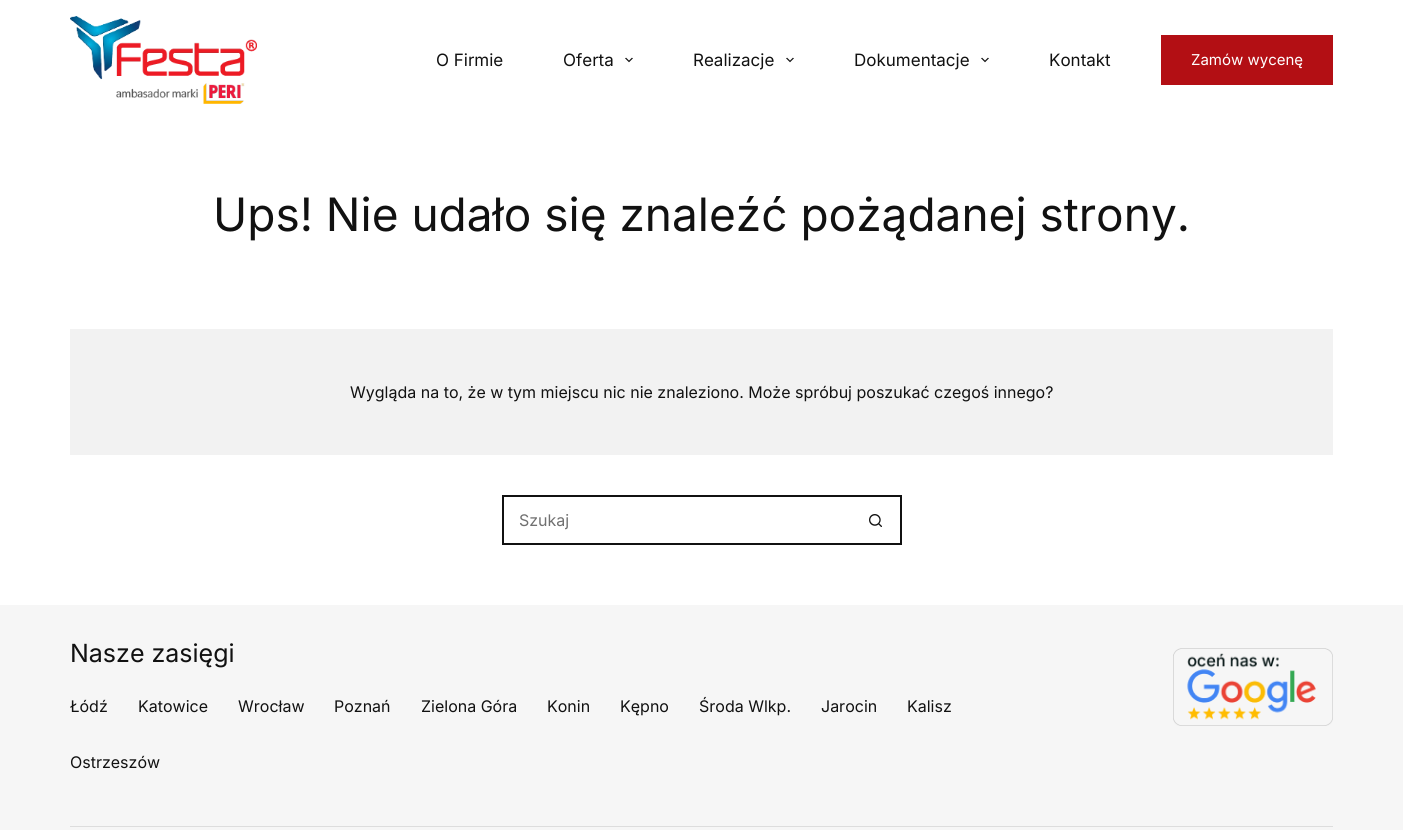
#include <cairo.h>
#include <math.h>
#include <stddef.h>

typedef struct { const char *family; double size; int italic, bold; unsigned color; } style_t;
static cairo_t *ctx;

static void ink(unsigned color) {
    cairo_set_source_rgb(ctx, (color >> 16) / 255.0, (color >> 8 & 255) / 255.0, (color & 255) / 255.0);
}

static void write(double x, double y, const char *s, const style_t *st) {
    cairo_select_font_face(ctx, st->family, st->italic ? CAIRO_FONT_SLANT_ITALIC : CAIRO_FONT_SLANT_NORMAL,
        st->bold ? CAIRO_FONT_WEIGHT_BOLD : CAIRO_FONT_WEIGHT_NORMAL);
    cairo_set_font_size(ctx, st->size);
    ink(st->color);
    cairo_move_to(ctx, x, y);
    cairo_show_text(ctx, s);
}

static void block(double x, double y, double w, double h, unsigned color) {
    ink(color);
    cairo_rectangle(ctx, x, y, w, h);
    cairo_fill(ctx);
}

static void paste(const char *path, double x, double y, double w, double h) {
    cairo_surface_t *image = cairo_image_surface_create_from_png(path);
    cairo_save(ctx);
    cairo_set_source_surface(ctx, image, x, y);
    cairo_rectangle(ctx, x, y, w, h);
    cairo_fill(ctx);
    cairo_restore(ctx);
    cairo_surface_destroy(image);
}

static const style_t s1 = {"Inter", 17, 0, 0, 0x111111};
static const style_t s2 = {"Inter", 15, 0, 0, 0xffffff};
static const style_t s3 = {"Inter", 46, 0, 0, 0x111111};
static const style_t s4 = {"Inter", 16, 0, 0, 0x111111};
static const style_t s5 = {"Inter", 16, 0, 0, 0x707070};
static const style_t s6 = {"Inter", 25, 0, 0, 0x111111};

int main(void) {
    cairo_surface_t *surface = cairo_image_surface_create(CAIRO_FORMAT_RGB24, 1403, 830);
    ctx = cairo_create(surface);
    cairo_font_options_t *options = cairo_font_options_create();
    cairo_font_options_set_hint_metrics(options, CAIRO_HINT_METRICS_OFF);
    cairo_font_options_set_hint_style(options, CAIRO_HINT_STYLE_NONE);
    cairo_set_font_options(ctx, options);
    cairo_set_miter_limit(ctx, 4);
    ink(0xffffff);
    cairo_paint(ctx);
    paste("pic1.png", 70, 16, 187, 88);
    write(436, 66, "O Firmie", &s1);
    write(563, 66, "Oferta", &s1);
    paste("pic2.png", 625, 57, 8, 6);
    write(693, 66, "Realizacje", &s1);
    paste("pic2.png", 786, 57, 8, 6);
    write(854, 66, "Dokumentacje", &s1);
    paste("pic2.png", 981, 57, 8, 6);
    write(1049, 66, "Kontakt", &s1);
    block(1161, 35, 172, 50, 0xb30f14);
    write(1191, 65, "Zamów wycenę", &s2);
    write(213, 231, "Ups! Nie udało się znaleźć pożądanej strony.", &s3);
    block(70, 329, 1263, 126, 0xf2f2f2);
    write(350, 398, "Wygląda na to, że w tym miejscu nic nie znaleziono. Może spróbuj poszukać czegoś innego?", &s4);
    block(502, 495, 400, 2, 0x111111);
    block(502, 543, 350, 2, 0x111111);
    block(502, 495, 2, 50, 0x111111);
    write(519, 526, "Szukaj", &s5);
    block(900, 495, 2, 50, 0x111111);
    block(852, 543, 50, 2, 0x111111);
    paste("pic3.png", 869, 514, 13, 13);
    block(0, 605, 1403, 225, 0xf6f6f6);
    block(70, 826, 1263, 1, 0xdddddd);
    write(70, 662, "Nasze zasięgi", &s6);
    write(70, 712, "Łódź", &s4);
    write(138, 712, "Katowice", &s4);
    write(238, 712, "Wrocław", &s4);
    write(334, 712, "Poznań", &s4);
    write(421, 712, "Zielona Góra", &s4);
    write(547, 712, "Konin", &s4);
    write(620, 712, "Kępno", &s4);
    write(699, 712, "Środa Wlkp.", &s4);
    write(821, 712, "Jarocin", &s4);
    write(907, 712, "Kalisz", &s4);
    write(70, 768, "Ostrzeszów", &s4);
    paste("pic4.png", 1173, 648, 160, 78);
    cairo_surface_write_to_png(surface, "screenshot.png");
    cairo_font_options_destroy(options);
    cairo_destroy(ctx);
    cairo_surface_destroy(surface);
    return 0;
}
